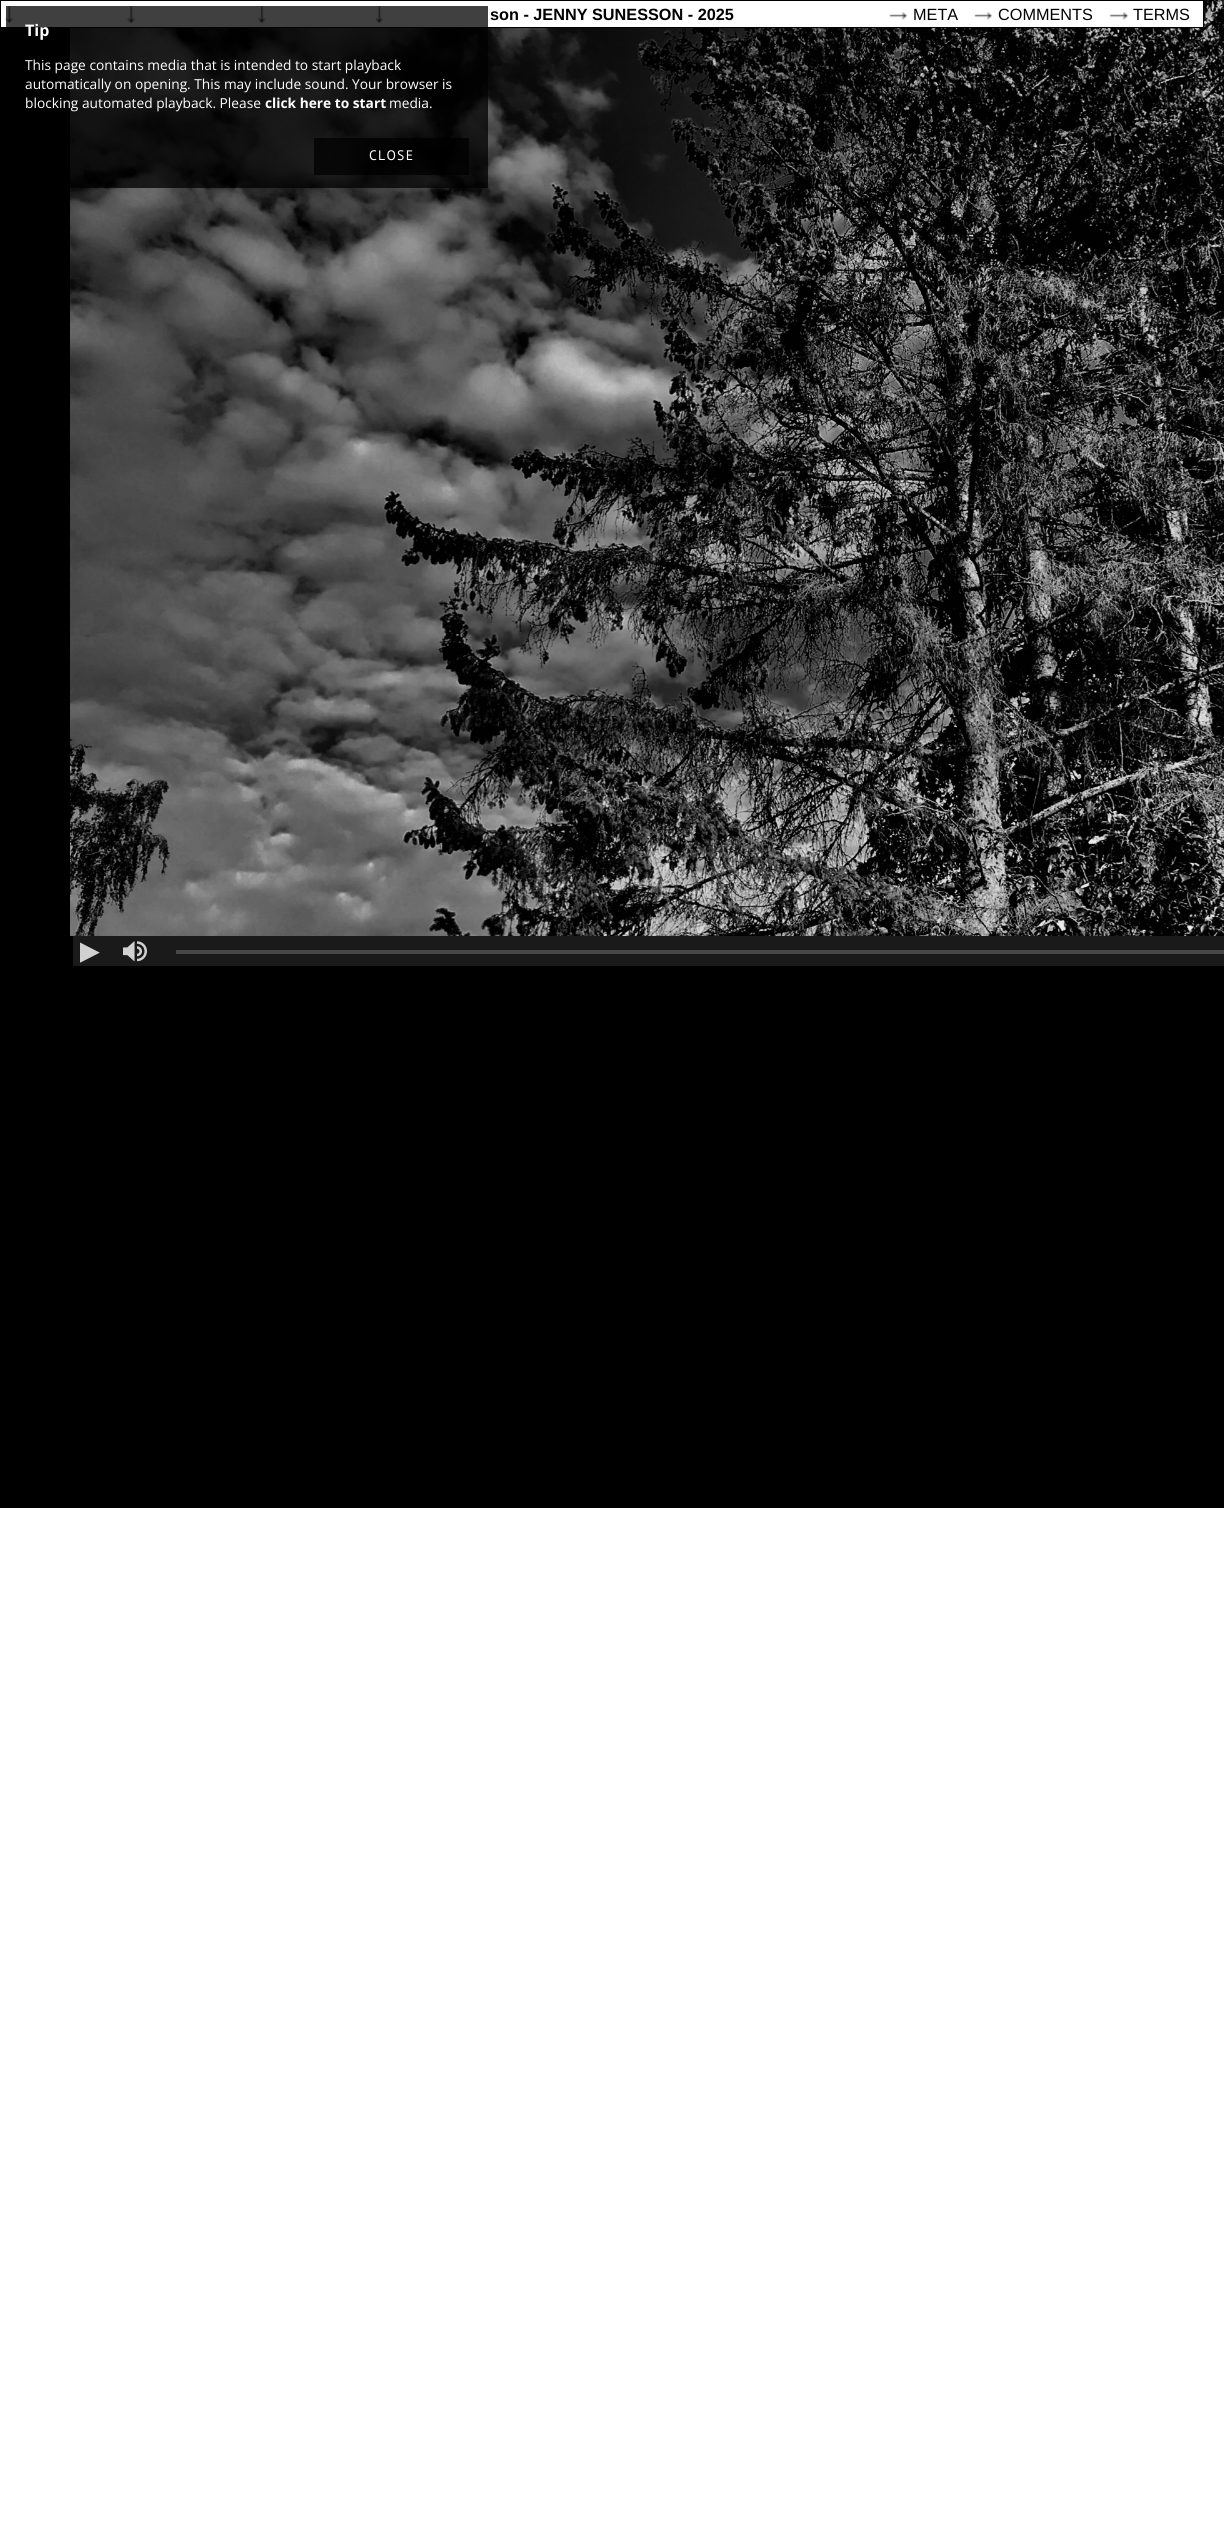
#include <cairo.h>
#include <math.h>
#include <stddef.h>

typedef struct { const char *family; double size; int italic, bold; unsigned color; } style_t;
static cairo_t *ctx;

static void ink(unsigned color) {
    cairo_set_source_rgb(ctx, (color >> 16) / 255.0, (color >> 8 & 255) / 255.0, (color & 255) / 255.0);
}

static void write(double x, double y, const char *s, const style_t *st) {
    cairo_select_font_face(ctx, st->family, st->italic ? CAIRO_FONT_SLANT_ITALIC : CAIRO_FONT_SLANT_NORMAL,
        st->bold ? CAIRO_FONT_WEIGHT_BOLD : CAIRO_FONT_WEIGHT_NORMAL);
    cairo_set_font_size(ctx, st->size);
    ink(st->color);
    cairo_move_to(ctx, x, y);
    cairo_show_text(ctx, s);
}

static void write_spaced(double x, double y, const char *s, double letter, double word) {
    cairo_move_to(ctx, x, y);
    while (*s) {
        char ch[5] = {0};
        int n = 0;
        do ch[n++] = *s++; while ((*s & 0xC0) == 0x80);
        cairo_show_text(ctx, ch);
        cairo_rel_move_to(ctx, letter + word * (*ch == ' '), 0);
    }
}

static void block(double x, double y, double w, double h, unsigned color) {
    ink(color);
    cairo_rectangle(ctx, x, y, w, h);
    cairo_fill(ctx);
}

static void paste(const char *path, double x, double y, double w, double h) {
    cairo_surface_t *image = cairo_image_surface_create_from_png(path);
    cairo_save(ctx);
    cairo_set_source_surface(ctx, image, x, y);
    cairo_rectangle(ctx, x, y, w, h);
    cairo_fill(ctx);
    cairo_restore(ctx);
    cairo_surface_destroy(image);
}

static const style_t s1 = {"Liberation Sans", 16.25, 0, 1, 0x000000};
static const style_t s2 = {"Liberation Sans", 16.25, 0, 0, 0x000000};
static const style_t s3 = {"Open Sans", 16, 0, 1, 0xffffff};
static const style_t s4 = {"Open Sans", 13.75, 0, 0, 0xffffff};
static const style_t s5 = {"Open Sans", 13.75, 0, 1, 0xffffff};

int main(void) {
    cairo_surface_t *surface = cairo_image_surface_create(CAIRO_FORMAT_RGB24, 1224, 2525);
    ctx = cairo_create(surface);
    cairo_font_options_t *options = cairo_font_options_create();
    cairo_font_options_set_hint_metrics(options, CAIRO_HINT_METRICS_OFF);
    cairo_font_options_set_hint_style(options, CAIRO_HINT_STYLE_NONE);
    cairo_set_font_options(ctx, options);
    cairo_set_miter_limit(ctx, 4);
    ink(0xffffff);
    cairo_paint(ctx);
    block(0, 28, 1224, 1480, 0x000000);
    paste("pic1.png", 70, 0, 1154, 936);
    block(73, 936, 1151, 30, 0x1a1a1a);
    ink(0xd1d1d1);
    cairo_new_path(ctx);
    cairo_move_to(ctx, 80.5, 962.5);
    cairo_line_to(ctx, 80, 962.5);
    cairo_line_to(ctx, 80, 942.5);
    cairo_line_to(ctx, 99.5, 952.5);
    cairo_line_to(ctx, 100, 952.5);
    cairo_close_path(ctx);
    cairo_fill(ctx);
    paste("pic2.png", 123, 941, 24, 21);
    block(176, 950, 1048, 4, 0x484848);
    block(70, 1, 1133, 26, 0xffffff);
    cairo_rectangle(ctx, 0.5, 0.5, 1203, 27);
    ink(0x000000);
    cairo_set_line_width(ctx, 1);
    cairo_stroke(ctx);
    paste("pic3.png", 5, 6, 9, 18);
    paste("pic4.png", 126, 6, 10, 18);
    paste("pic5.png", 257, 6, 9, 18);
    paste("pic6.png", 375, 6, 9, 18);
    write(490, 20, "son - JENNY SUNESSON - 2025", &s1);
    paste("pic7.png", 889, 12, 19, 8);
    write(913, 20, "META", &s2);
    paste("pic7.png", 974, 12, 19, 8);
    write(998, 20, "COMMENTS", &s2);
    paste("pic8.png", 1109, 12, 20, 8);
    write(1133, 20, "TERMS", &s2);
    cairo_set_source_rgba(ctx, 0, 0, 0, 0.75);
    cairo_rectangle(ctx, 6, 6, 482, 182);
    cairo_fill(ctx);
    write(25, 36, "Tip", &s3);
    write(25, 70, "This page contains media that is intended to start playback", &s4);
    write(25, 89, "automatically on opening. This may include sound. Your browser is", &s4);
    write(25, 108, "blocking automated playback. Please", &s4);
    write(265, 108, "click here to start", &s5);
    write(389, 108, "media.", &s4);
    cairo_set_source_rgba(ctx, 0, 0, 0, 0.75);
    cairo_rectangle(ctx, 314, 138, 155, 37);
    cairo_fill(ctx);
    cairo_select_font_face(ctx, "PT Sans", CAIRO_FONT_SLANT_NORMAL, CAIRO_FONT_WEIGHT_NORMAL);
    ink(0xffffff);
    write_spaced(369, 160, "CLOSE", 1.25, 0);
    cairo_surface_write_to_png(surface, "screenshot.png");
    cairo_font_options_destroy(options);
    cairo_destroy(ctx);
    cairo_surface_destroy(surface);
    return 0;
}
